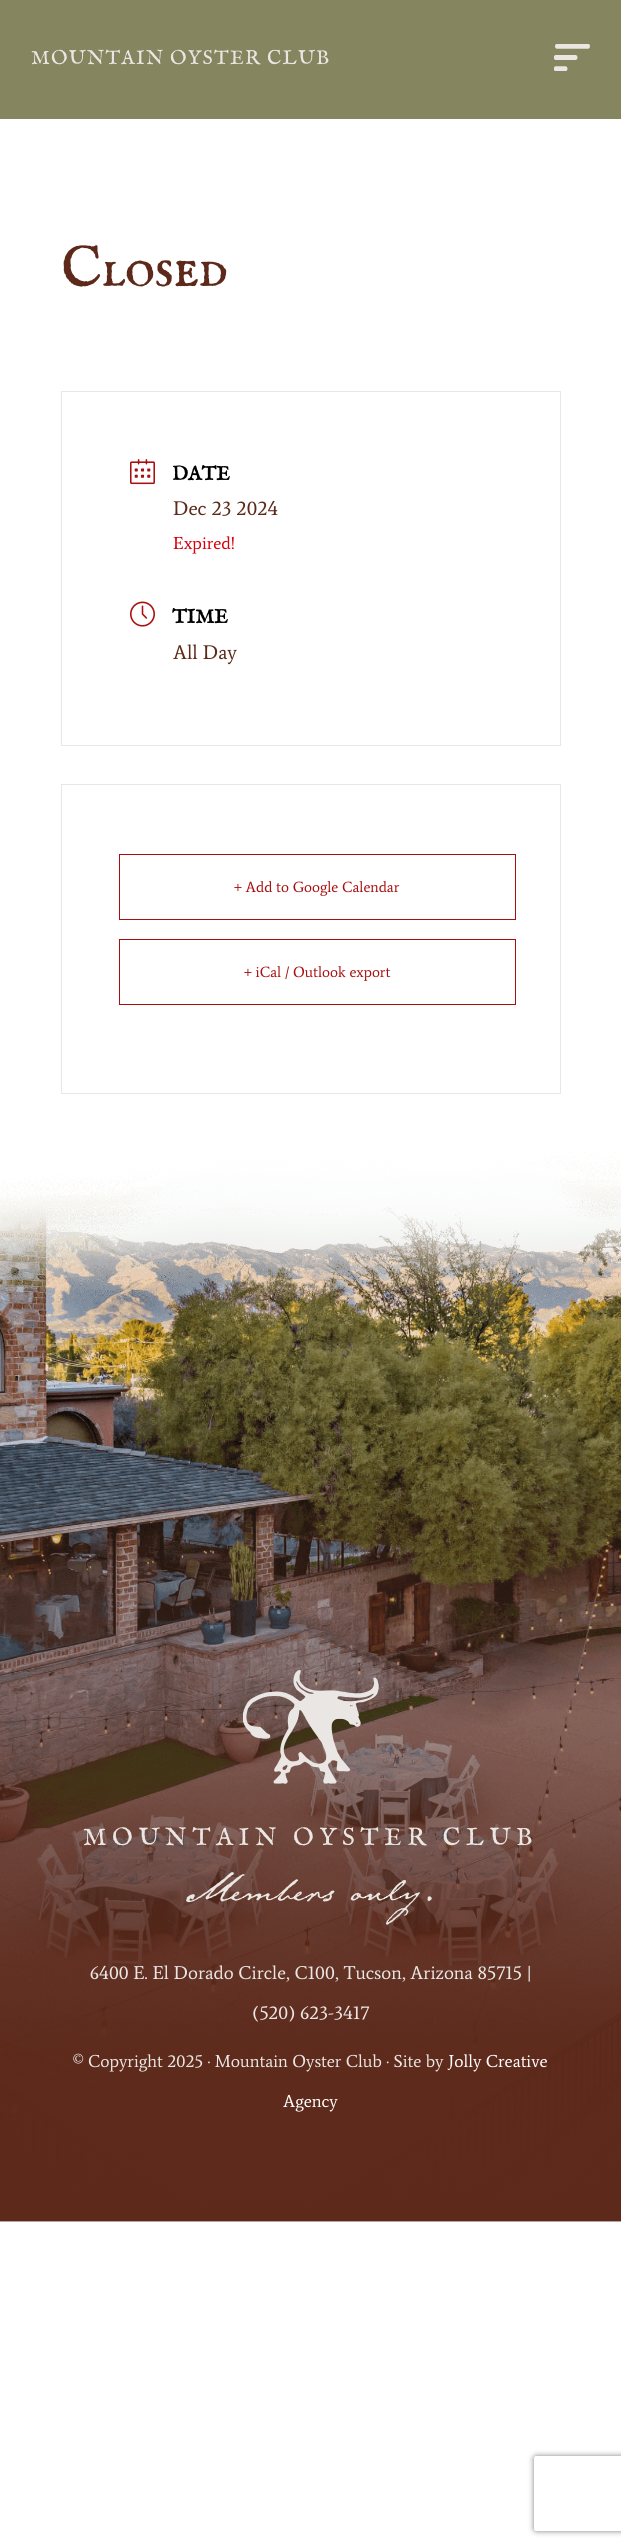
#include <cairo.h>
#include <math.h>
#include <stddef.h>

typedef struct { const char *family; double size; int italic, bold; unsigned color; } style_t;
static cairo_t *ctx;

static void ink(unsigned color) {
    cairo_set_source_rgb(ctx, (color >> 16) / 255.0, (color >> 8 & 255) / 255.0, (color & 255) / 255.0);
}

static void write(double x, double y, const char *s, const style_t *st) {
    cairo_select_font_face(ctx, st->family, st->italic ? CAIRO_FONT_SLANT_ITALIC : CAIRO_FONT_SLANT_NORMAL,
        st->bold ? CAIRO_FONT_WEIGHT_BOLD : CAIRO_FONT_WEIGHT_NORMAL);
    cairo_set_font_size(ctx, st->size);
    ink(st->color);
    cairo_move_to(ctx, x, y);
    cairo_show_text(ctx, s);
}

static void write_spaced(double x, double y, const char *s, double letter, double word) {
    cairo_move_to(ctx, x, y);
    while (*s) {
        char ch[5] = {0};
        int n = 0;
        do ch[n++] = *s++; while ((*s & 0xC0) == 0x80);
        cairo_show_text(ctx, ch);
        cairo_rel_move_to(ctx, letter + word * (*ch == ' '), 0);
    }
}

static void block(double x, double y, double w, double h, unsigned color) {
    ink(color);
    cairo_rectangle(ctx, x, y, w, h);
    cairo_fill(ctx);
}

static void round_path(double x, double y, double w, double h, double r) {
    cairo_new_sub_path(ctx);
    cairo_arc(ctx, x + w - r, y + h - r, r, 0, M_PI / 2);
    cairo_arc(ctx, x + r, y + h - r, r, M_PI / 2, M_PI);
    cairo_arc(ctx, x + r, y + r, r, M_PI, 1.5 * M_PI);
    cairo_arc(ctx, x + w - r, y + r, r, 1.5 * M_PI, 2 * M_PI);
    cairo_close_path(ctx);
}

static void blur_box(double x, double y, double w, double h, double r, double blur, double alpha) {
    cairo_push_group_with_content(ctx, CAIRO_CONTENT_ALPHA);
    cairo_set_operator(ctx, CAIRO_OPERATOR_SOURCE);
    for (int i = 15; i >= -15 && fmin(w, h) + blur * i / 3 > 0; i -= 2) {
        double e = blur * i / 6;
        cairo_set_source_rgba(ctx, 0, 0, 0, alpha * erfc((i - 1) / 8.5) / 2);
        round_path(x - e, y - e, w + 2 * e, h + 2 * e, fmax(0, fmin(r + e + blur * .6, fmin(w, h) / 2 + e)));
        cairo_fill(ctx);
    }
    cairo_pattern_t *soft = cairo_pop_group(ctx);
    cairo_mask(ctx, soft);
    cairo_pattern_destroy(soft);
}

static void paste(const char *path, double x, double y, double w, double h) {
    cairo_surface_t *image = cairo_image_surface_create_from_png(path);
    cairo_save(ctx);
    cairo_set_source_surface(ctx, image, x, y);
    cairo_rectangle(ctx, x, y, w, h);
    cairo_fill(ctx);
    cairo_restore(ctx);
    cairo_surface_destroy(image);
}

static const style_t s1 = {"IM FELL English SC", 20, 0, 1, 0x000000};
static const style_t s2 = {"Average", 20, 0, 0, 0x5d291a};
static const style_t s3 = {"Average", 17.5, 0, 0, 0xd8000c};
static const style_t s4 = {"Average", 15, 0, 0, 0xa81010};
static const style_t s5 = {"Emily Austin", 52.5, 0, 0, 0xe9e6e3};
static const style_t s6 = {"Average", 18.75, 0, 0, 0xe9e6e3};
static const style_t s7 = {"Average", 17.5, 0, 0, 0xe9e6e3};
static const style_t s8 = {"Average", 17.5, 0, 0, 0xffffff};

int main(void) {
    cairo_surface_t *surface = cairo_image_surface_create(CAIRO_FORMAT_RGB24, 621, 2548);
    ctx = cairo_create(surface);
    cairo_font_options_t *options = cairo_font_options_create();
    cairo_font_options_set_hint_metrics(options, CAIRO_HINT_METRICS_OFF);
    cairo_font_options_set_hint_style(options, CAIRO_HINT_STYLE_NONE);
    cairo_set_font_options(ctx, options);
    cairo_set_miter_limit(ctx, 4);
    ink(0xffffff);
    cairo_paint(ctx);
    block(0, 0, 621, 119, 0x85865f);
    cairo_select_font_face(ctx, "IM FELL English SC", CAIRO_FONT_SLANT_NORMAL, CAIRO_FONT_WEIGHT_NORMAL);
    cairo_set_font_size(ctx, 20);
    ink(0xe9e6e3);
    write_spaced(31, 64, "MOUNTAIN OYSTER CLUB", 1.25, 0);
    paste("pic1.png", 554, 44, 36, 27);
    cairo_set_font_size(ctx, 57.5);
    ink(0x5d291a);
    write_spaced(61, 286, "Closed", -1.25, 0);
    cairo_rectangle(ctx, 61.5, 391.5, 499, 354);
    ink(0xe6e7e8);
    cairo_set_line_width(ctx, 1);
    cairo_stroke(ctx);
    paste("pic2.png", 130, 459, 25, 26);
    write(172, 480, "DATE", &s1);
    write(173, 515, "Dec 23 2024", &s2);
    write(173, 549, "Expired!", &s3);
    paste("pic3.png", 130, 601, 25, 26);
    write(172, 623, "TIME", &s1);
    write(173, 659, "All Day", &s2);
    cairo_rectangle(ctx, 61.5, 784.5, 499, 309);
    ink(0xe6e7e8);
    cairo_stroke(ctx);
    cairo_rectangle(ctx, 119.5, 854.5, 396, 65);
    ink(0xa81010);
    cairo_stroke(ctx);
    write(234, 892, "+ Add to Google Calendar", &s4);
    cairo_rectangle(ctx, 119.5, 939.5, 396, 65);
    cairo_stroke(ctx);
    write(244, 977, "+ iCal / Outlook export", &s4);
    paste("pic4.png", 0, 1150, 621, 1072);
    paste("pic5.png", 243, 1670, 136, 114);
    cairo_select_font_face(ctx, "IM FELL English SC", CAIRO_FONT_SLANT_NORMAL, CAIRO_FONT_WEIGHT_NORMAL);
    cairo_set_font_size(ctx, 25);
    ink(0xe9e6e3);
    write_spaced(83, 1845, "MOUNTAIN OYSTER CLUB", 5.6, 0);
    write(186, 1899, "Members only.", &s5);
    write(90, 1979, "6400 E. El Dorado Circle, C100, Tucson, Arizona 85715 |", &s6);
    write(252, 2019, "(520) 623-3417", &s6);
    write(73, 2067, "© Copyright 2025 · Mountain Oyster Club · Site by", &s7);
    write(448, 2067, "Jolly Creative", &s8);
    write(283, 2107, "Agency", &s8);
    cairo_save(ctx);
    cairo_set_fill_rule(ctx, CAIRO_FILL_RULE_EVEN_ODD);
    cairo_new_path(ctx);
    cairo_move_to(ctx, 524, 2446);
    cairo_line_to(ctx, 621, 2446);
    cairo_line_to(ctx, 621, 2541);
    cairo_line_to(ctx, 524, 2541);
    cairo_close_path(ctx);
    cairo_move_to(ctx, 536.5, 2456);
    cairo_line_to(ctx, 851.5, 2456);
    cairo_curve_to(ctx, 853, 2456, 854, 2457, 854, 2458.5);
    cairo_line_to(ctx, 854, 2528.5);
    cairo_curve_to(ctx, 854, 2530, 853, 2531, 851.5, 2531);
    cairo_line_to(ctx, 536.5, 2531);
    cairo_curve_to(ctx, 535, 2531, 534, 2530, 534, 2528.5);
    cairo_line_to(ctx, 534, 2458.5);
    cairo_curve_to(ctx, 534, 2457, 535, 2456, 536.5, 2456);
    cairo_close_path(ctx);
    cairo_clip(ctx);
    ink(0x808080);
    blur_box(534, 2456, 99, 75, 2.5, 3, 1);
    cairo_restore(ctx);
    cairo_surface_write_to_png(surface, "screenshot.png");
    cairo_font_options_destroy(options);
    cairo_destroy(ctx);
    cairo_surface_destroy(surface);
    return 0;
}
